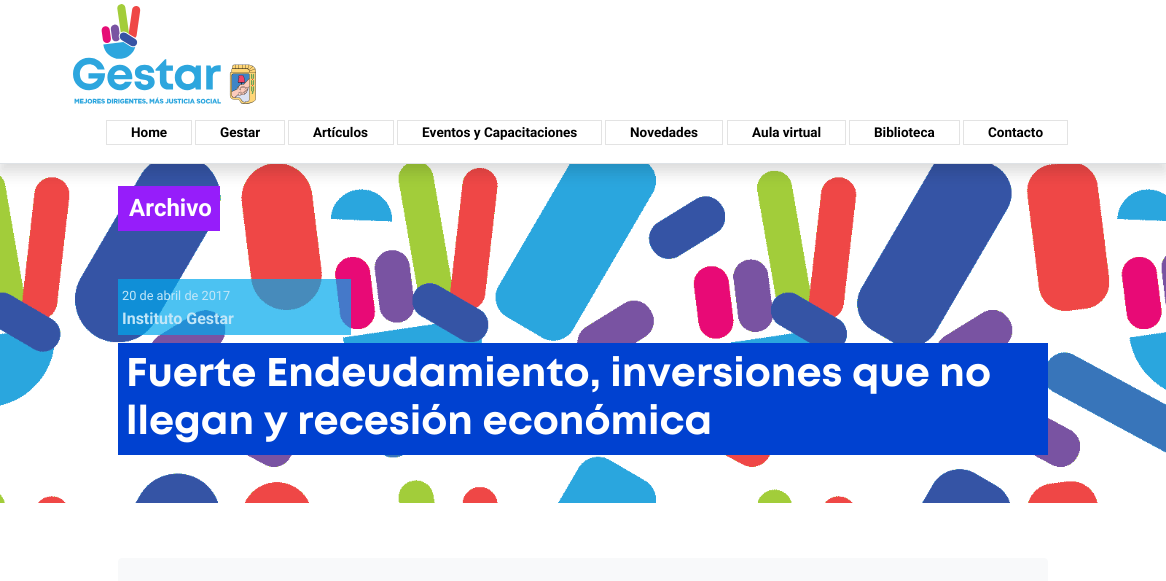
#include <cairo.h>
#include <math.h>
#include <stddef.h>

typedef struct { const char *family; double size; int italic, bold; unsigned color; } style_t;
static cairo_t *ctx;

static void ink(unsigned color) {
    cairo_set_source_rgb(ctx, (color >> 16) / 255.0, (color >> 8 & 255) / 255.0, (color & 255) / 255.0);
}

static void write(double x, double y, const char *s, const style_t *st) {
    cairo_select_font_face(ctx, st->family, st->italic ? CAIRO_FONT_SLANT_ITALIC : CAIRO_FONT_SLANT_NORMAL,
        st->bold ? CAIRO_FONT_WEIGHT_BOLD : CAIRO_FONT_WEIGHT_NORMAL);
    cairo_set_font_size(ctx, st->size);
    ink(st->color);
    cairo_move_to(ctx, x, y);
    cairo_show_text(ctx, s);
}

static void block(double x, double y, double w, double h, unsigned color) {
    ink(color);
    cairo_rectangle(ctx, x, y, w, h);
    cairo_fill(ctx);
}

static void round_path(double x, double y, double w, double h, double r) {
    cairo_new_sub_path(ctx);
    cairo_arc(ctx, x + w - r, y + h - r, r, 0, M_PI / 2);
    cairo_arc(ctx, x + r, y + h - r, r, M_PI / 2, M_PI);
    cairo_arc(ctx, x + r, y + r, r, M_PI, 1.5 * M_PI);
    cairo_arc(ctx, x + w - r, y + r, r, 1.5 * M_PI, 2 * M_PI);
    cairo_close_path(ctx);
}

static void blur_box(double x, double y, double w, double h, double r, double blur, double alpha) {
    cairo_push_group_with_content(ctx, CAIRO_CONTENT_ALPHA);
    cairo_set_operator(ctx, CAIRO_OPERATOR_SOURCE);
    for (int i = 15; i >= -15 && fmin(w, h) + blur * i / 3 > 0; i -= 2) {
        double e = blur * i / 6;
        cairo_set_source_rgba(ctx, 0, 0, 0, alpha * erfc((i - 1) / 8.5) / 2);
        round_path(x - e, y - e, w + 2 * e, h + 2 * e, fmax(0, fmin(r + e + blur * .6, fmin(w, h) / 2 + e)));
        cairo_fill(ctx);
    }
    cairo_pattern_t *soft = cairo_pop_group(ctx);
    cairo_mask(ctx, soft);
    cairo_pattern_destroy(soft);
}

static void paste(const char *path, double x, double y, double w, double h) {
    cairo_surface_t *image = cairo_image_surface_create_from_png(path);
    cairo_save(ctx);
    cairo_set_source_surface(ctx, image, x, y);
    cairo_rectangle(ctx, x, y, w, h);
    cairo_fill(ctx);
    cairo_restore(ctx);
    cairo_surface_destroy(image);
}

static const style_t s1 = {"Roboto", 13.5, 0, 1, 0x000000};
static const style_t s2 = {"Roboto", 24, 0, 1, 0xffffff};
static const style_t s3 = {"Roboto", 12.75, 0, 0, 0xc1e6f8};
static const style_t s4 = {"Roboto", 16, 0, 1, 0xc1e6f8};
static const style_t s5 = {"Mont", 40, 0, 1, 0xffffff};

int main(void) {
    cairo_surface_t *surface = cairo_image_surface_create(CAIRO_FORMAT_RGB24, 1166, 581);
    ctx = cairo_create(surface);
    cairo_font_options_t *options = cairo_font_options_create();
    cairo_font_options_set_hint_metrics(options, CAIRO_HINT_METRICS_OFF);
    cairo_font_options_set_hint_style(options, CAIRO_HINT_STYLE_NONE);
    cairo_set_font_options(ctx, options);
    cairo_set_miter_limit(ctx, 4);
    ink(0xffffff);
    cairo_paint(ctx);
    paste("pic2.png", 0, 164, 1166, 339);
    block(118, 186, 102, 45, 0x961dfa);
    ink(0x000000);
    blur_box(0, -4, 1166, 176, 0, 8, 0.15);
    block(0, 0, 1166, 163, 0xffffff);
    block(0, 163, 1166, 1, 0xdee2e6);
    paste("pic1.png", 73, 4, 183, 100);
    cairo_rectangle(ctx, 106.5, 120.5, 85, 24);
    ink(0xe3e3e3);
    cairo_set_line_width(ctx, 1);
    cairo_stroke(ctx);
    write(131, 137, "Home", &s1);
    cairo_rectangle(ctx, 195.5, 120.5, 89, 24);
    ink(0xe3e3e3);
    cairo_stroke(ctx);
    write(220, 137, "Gestar", &s1);
    cairo_rectangle(ctx, 288.5, 120.5, 105, 24);
    ink(0xe3e3e3);
    cairo_stroke(ctx);
    write(313, 137, "Artículos", &s1);
    cairo_rectangle(ctx, 397.5, 120.5, 204, 24);
    ink(0xe3e3e3);
    cairo_stroke(ctx);
    write(422, 137, "Eventos y Capacitaciones", &s1);
    cairo_rectangle(ctx, 605.5, 120.5, 117, 24);
    ink(0xe3e3e3);
    cairo_stroke(ctx);
    write(630, 137, "Novedades", &s1);
    cairo_rectangle(ctx, 727.5, 120.5, 118, 24);
    ink(0xe3e3e3);
    cairo_stroke(ctx);
    write(752, 137, "Aula virtual", &s1);
    cairo_rectangle(ctx, 849.5, 120.5, 110, 24);
    ink(0xe3e3e3);
    cairo_stroke(ctx);
    write(874, 137, "Biblioteca", &s1);
    cairo_rectangle(ctx, 963.5, 120.5, 104, 24);
    ink(0xe3e3e3);
    cairo_stroke(ctx);
    write(988, 137, "Contacto", &s1);
    write(129, 216, "Archivo", &s2);
    cairo_set_source_rgba(ctx, 0, 0.659, 0.929, 0.7);
    cairo_rectangle(ctx, 118, 279, 233, 56);
    cairo_fill(ctx);
    write(122, 300, "20 de abril de 2017", &s3);
    write(122, 324, "Instituto Gestar", &s4);
    block(118, 343, 930, 112, 0x0041d0);
    write(126, 386, "Fuerte Endeudamiento, inversiones que no", &s5);
    write(126, 434, "llegan y recesión económica", &s5);
    ink(0xf8f9fa);
    round_path(118, 558, 930, 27, 4);
    cairo_fill(ctx);
    cairo_surface_write_to_png(surface, "screenshot.png");
    cairo_font_options_destroy(options);
    cairo_destroy(ctx);
    cairo_surface_destroy(surface);
    return 0;
}
